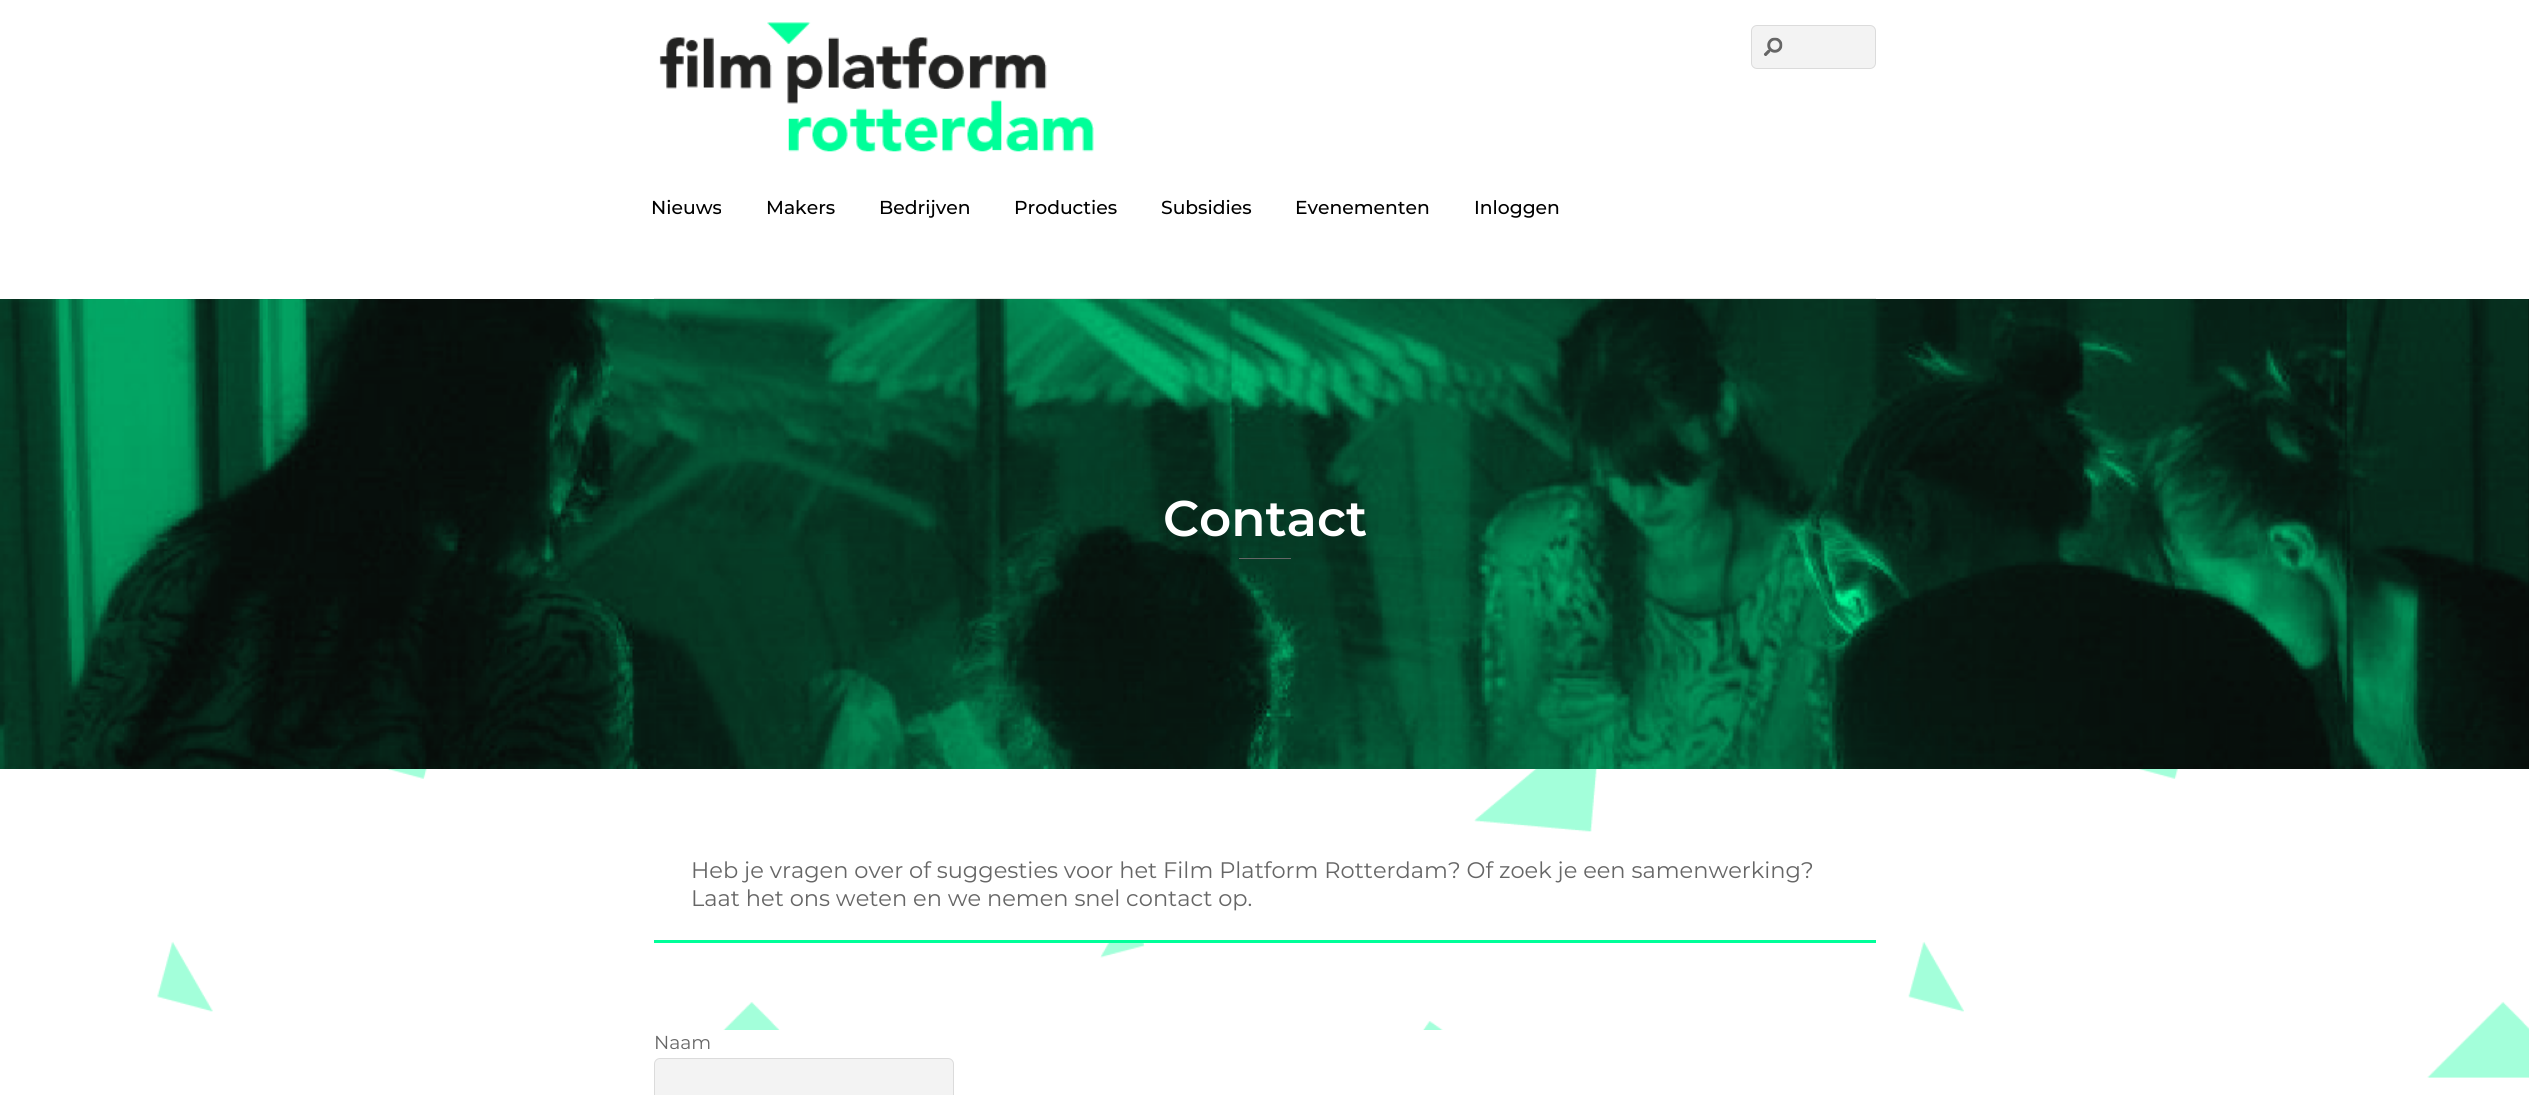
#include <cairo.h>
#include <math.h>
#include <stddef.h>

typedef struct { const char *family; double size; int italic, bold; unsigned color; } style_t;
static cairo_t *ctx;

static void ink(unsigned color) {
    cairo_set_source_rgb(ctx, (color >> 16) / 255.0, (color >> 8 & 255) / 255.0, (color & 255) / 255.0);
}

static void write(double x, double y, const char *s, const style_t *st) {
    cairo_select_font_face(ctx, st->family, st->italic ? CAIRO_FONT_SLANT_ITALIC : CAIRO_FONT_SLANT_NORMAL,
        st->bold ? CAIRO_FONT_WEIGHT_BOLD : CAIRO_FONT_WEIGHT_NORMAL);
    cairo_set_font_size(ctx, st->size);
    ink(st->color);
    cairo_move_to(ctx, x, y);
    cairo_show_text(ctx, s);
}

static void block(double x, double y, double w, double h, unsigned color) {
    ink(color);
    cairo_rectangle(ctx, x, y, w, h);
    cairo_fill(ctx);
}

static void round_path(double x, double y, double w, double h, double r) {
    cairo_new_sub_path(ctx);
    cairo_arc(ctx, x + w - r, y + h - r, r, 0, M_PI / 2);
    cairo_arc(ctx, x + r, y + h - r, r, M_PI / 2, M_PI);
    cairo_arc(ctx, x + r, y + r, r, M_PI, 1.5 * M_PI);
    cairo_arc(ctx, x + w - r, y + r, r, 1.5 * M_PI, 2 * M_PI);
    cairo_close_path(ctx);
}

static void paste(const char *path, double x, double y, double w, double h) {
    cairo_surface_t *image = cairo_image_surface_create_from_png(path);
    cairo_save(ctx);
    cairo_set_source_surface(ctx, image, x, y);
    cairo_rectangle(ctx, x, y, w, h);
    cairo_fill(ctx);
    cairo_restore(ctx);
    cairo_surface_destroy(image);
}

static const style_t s1 = {"Montserrat Medium", 18.75, 0, 0, 0x000000};
static const style_t s2 = {"Montserrat SemiBold", 50, 0, 0, 0xffffff};
static const style_t s3 = {"Montserrat", 22.5, 0, 0, 0x666666};
static const style_t s4 = {"Montserrat", 18.75, 0, 0, 0x666666};

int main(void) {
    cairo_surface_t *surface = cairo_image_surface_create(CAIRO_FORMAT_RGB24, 2529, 1095);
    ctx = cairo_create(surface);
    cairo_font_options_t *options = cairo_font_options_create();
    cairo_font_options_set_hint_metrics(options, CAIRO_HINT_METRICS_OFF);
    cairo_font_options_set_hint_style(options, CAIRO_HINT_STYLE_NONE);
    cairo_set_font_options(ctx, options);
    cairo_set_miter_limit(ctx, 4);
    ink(0xffffff);
    cairo_paint(ctx);
    block(654, 298, 1222, 1, 0xe6e6e6);
    paste("pic1.png", 659, 22, 435, 130);
    ink(0xf3f3f3);
    round_path(1751, 25, 125, 44, 6);
    cairo_fill(ctx);
    round_path(1751.5, 25.5, 124, 43, 5.5);
    cairo_set_source_rgba(ctx, 0, 0, 0, 0.1);
    cairo_set_line_width(ctx, 1);
    cairo_stroke(ctx);
    paste("pic2.png", 1763, 37, 20, 19);
    write(651, 214, "Nieuws", &s1);
    write(766, 214, "Makers", &s1);
    write(879, 214, "Bedrijven", &s1);
    write(1014, 214, "Producties", &s1);
    write(1161, 214, "Subsidies", &s1);
    write(1295, 214, "Evenementen", &s1);
    write(1474, 214, "Inloggen", &s1);
    paste("pic3.png", 157, 769, 2372, 309);
    paste("pic4.png", 157, 769, 2372, 309);
    paste("pic5.png", 0, 299, 2529, 470);
    write(1163, 536, "Contact", &s2);
    block(1239, 558, 52, 1, 0x666666);
    block(1110, 902, 33, 38, 0xffffff);
    block(654, 940, 1222, 3, 0x00ff99);
    write(691, 878, "Heb je vragen over of suggesties voor het Film Platform Rotterdam? Of zoek je een samenwerking?", &s3);
    write(691, 906, "Laat het ons weten en we nemen snel contact op.", &s3);
    block(676, 1030, 798, 48, 0xffffff);
    write(654, 1049, "Naam", &s4);
    ink(0xf3f3f3);
    round_path(654, 1058, 300, 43, 6);
    cairo_fill(ctx);
    round_path(654.5, 1058.5, 299, 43, 5.5);
    cairo_set_source_rgba(ctx, 0, 0, 0, 0.1);
    cairo_stroke(ctx);
    cairo_surface_write_to_png(surface, "screenshot.png");
    cairo_font_options_destroy(options);
    cairo_destroy(ctx);
    cairo_surface_destroy(surface);
    return 0;
}
